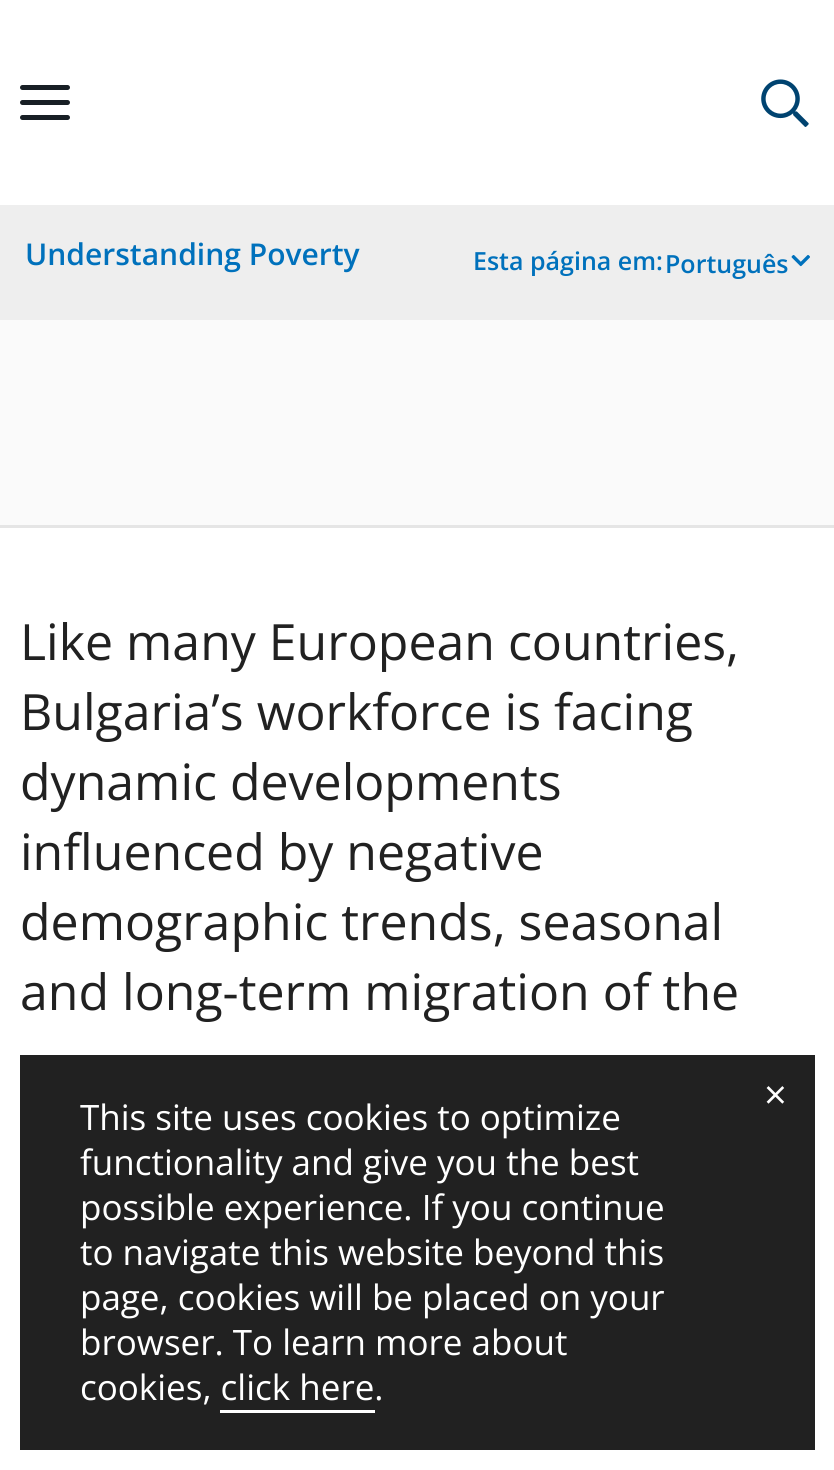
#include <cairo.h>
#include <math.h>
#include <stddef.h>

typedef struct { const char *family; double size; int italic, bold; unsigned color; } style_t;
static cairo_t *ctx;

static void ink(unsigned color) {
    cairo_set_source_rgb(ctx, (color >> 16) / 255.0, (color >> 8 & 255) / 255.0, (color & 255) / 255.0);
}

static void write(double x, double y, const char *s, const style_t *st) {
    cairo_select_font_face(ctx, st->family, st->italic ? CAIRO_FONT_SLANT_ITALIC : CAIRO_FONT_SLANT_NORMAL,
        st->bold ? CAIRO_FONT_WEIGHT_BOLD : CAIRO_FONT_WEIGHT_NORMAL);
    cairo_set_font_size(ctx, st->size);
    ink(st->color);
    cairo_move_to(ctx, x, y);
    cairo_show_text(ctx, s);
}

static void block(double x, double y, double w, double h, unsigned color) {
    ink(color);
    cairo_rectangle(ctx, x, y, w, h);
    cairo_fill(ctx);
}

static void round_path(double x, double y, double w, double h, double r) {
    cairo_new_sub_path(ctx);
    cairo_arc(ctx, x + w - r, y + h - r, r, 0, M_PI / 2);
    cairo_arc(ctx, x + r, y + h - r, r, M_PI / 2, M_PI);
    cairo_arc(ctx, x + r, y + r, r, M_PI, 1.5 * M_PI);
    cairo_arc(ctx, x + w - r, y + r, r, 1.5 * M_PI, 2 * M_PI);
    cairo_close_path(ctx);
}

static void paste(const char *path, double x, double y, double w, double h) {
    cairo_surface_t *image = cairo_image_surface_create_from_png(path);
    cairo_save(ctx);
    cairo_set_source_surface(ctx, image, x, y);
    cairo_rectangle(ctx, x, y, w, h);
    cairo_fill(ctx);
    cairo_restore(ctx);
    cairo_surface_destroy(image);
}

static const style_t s1 = {"Open Sans SemiBold", 30, 0, 0, 0x0071bc};
static const style_t s2 = {"Open Sans SemiBold", 25, 0, 0, 0x0071bc};
static const style_t s3 = {"Open Sans", 50, 0, 0, 0x212121};
static const style_t s4 = {"Open Sans", 40, 0, 0, 0xffffff};
static const style_t s5 = {"Open Sans", 35, 0, 0, 0xffffff};

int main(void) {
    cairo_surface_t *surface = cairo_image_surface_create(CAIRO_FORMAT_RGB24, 834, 1470);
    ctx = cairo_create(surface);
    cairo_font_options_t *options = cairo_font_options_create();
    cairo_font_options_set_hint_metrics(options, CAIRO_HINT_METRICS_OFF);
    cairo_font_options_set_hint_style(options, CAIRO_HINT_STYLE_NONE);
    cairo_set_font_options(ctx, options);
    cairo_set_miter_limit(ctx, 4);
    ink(0xffffff);
    cairo_paint(ctx);
    ink(0x181f25);
    round_path(20, 100, 50, 5, 2.5);
    cairo_fill(ctx);
    round_path(20, 85, 50, 5, 2.5);
    cairo_fill(ctx);
    round_path(20, 115, 50, 5, 2.5);
    cairo_fill(ctx);
    paste("pic1.png", 761, 79, 48, 48);
    block(0, 205, 834, 115, 0xeeeeee);
    write(25, 265, "Understanding Poverty", &s1);
    write(473, 270, "Esta página em:", &s2);
    write(665, 273, "Português", &s2);
    paste("pic2.png", 791, 255, 19, 12);
    block(0, 320, 834, 205, 0xfafafa);
    block(0, 525, 834, 3, 0xe5e5e5);
    write(20, 660, "Like many European countries,", &s3);
    write(20, 730, "Bulgaria’s workforce is facing", &s3);
    write(20, 800, "dynamic developments", &s3);
    write(20, 870, "influenced by negative", &s3);
    write(20, 940, "demographic trends, seasonal", &s3);
    write(20, 1010, "and long-term migration of the", &s3);
    cairo_set_source_rgba(ctx, 0, 0, 0, 0.87);
    cairo_rectangle(ctx, 20, 1055, 795, 395);
    cairo_fill(ctx);
    write(764, 1109, "×", &s4);
    write(80, 1130, "This site uses cookies to optimize", &s5);
    write(80, 1175, "functionality and give you the best", &s5);
    write(80, 1220, "possible experience. If you continue", &s5);
    write(80, 1265, "to navigate this website beyond this", &s5);
    write(80, 1310, "page, cookies will be placed on your", &s5);
    write(80, 1355, "browser. To learn more about", &s5);
    write(80, 1400, "cookies, click here.", &s5);
    block(220, 1410, 155, 3, 0xffffff);
    cairo_surface_write_to_png(surface, "screenshot.png");
    cairo_font_options_destroy(options);
    cairo_destroy(ctx);
    cairo_surface_destroy(surface);
    return 0;
}
